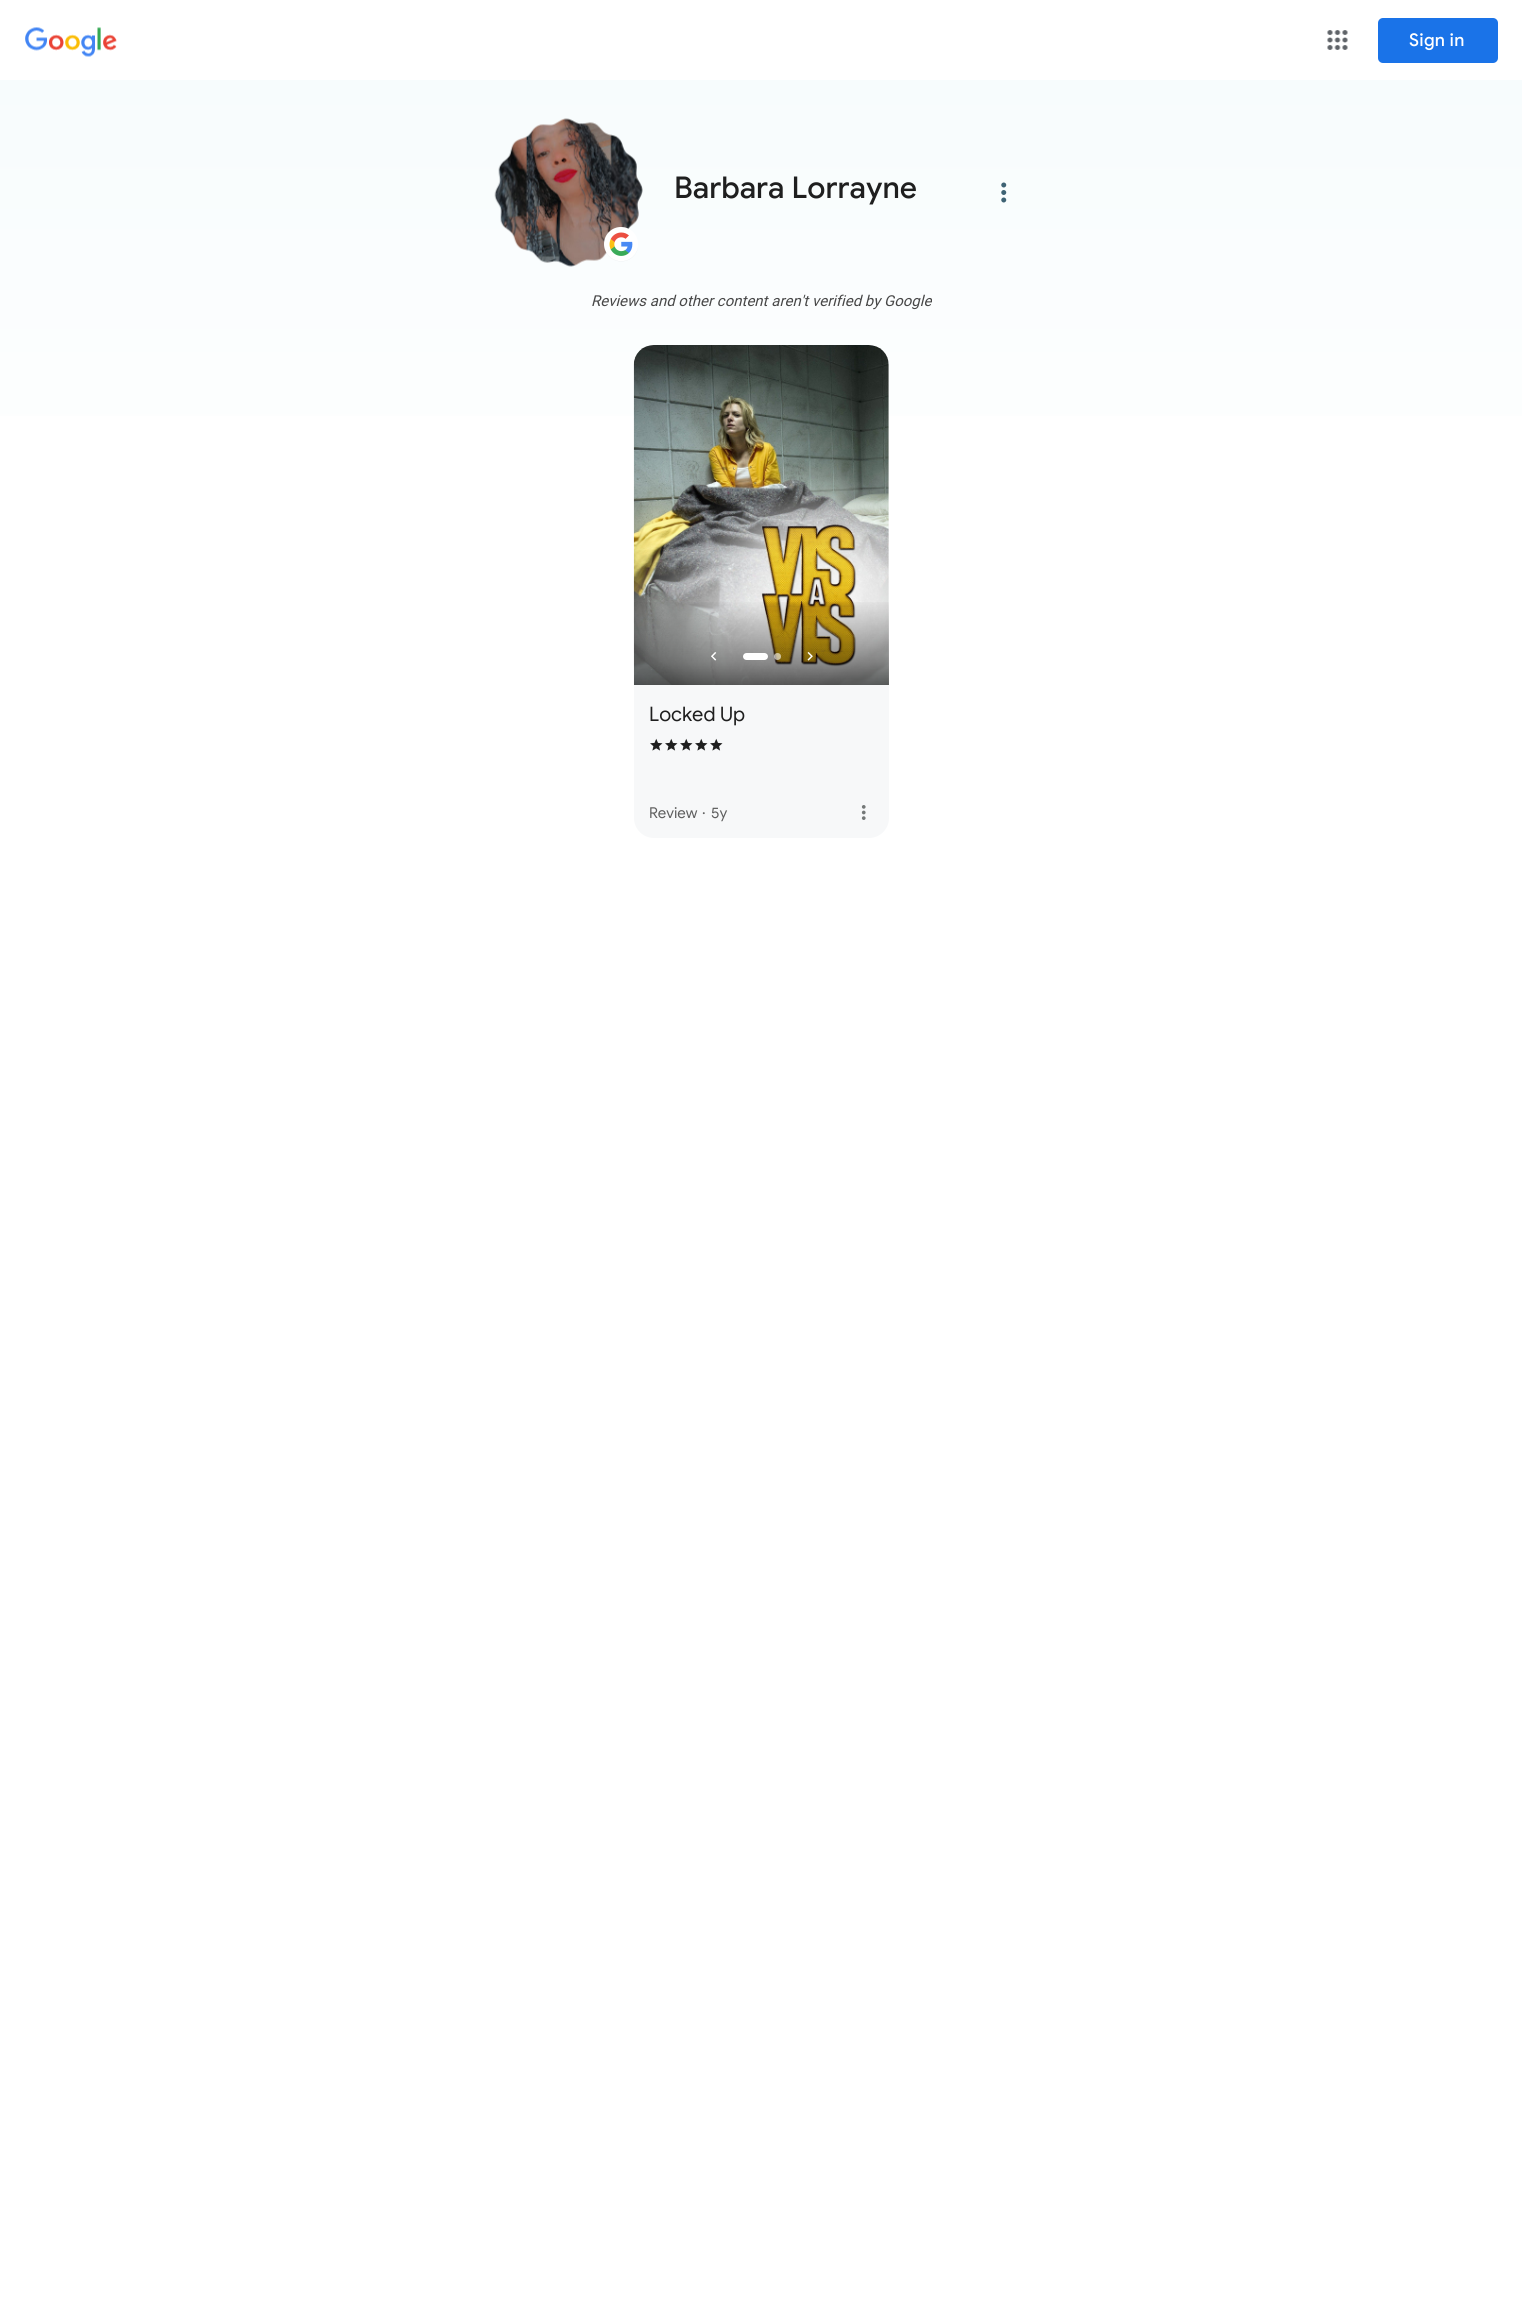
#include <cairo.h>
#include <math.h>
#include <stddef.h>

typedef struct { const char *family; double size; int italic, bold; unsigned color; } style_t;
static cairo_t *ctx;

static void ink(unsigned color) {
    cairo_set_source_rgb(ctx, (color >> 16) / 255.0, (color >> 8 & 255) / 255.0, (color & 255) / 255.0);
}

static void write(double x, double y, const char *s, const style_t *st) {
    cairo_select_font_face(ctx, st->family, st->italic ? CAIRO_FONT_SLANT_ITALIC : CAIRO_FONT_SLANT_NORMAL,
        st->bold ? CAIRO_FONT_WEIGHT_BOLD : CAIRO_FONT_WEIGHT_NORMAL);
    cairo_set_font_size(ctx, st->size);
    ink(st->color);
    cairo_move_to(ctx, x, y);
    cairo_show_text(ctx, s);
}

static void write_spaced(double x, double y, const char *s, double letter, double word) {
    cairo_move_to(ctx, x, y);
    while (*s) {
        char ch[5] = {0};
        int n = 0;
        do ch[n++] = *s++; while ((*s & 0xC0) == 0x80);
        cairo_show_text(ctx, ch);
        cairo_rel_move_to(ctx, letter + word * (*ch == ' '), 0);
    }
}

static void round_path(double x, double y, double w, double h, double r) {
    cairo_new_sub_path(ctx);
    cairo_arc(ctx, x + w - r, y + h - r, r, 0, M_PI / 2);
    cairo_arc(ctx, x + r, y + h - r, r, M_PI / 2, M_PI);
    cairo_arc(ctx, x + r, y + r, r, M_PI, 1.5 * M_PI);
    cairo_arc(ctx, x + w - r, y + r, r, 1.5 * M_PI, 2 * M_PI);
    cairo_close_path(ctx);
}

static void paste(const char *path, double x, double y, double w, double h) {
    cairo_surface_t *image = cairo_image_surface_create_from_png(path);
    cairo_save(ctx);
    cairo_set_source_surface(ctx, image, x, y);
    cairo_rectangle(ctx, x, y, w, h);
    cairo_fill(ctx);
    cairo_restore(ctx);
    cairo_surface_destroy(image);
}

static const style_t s1 = {"Google Sans Medium", 30, 0, 0, 0x1f1f1f};
static const style_t s2 = {"Roboto", 15, 1, 0, 0x474747};
static const style_t s3 = {"Google Sans", 20, 0, 0, 0x1f1f1f};
static const style_t s4 = {"Google Sans", 15, 0, 0, 0x5e5e5e};

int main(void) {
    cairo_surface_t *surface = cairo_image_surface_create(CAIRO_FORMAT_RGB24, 1522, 2324);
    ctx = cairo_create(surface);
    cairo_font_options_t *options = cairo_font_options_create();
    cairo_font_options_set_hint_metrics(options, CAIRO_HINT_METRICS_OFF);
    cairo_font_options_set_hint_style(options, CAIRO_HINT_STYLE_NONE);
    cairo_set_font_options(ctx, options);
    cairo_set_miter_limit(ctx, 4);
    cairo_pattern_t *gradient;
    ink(0xffffff);
    cairo_paint(ctx);
    paste("pic1.png", 25, 27, 92, 30);
    paste("pic2.png", 1327, 30, 21, 20);
    ink(0x1a73e8);
    round_path(1378, 18, 120, 45, 5);
    cairo_fill(ctx);
    cairo_select_font_face(ctx, "Google Sans Medium", CAIRO_FONT_SLANT_NORMAL, CAIRO_FONT_WEIGHT_NORMAL);
    cairo_set_font_size(ctx, 17.5);
    ink(0xffffff);
    write_spaced(1409, 46, "Sign in", 0.25, 0);
    gradient = cairo_pattern_create_linear(761, 80, 761, 568);
    cairo_pattern_add_color_stop_rgba(gradient, 0, 0.969, 0.988, 0.992, 1);
    cairo_pattern_add_color_stop_rgba(gradient, 1, 1, 1, 1, 1);
    cairo_set_source(ctx, gradient);
    cairo_pattern_destroy(gradient);
    cairo_rectangle(ctx, 0, 80, 1522, 336);
    cairo_fill(ctx);
    paste("pic3.png", 494, 118, 149, 149);
    paste("pic4.png", 604, 227, 34, 35);
    write(674, 198, "Barbara Lorrayne", &s1);
    paste("pic5.png", 1001, 182, 6, 21);
    write(591, 306, "Reviews and other content aren't verified by Google", &s2);
    ink(0xf7f8f9);
    round_path(634, 345, 255, 493, 20);
    cairo_fill(ctx);
    paste("pic6.png", 633, 345, 256, 340);
    gradient = cairo_pattern_create_linear(761, 598, 761, 685);
    cairo_pattern_add_color_stop_rgba(gradient, 0, 0, 0, 0, 0);
    cairo_pattern_add_color_stop_rgba(gradient, 0.75, 0, 0, 0, 0.4);
    cairo_pattern_add_color_stop_rgba(gradient, 1, 0, 0, 0, 0.6);
    cairo_set_source(ctx, gradient);
    cairo_pattern_destroy(gradient);
    cairo_rectangle(ctx, 634, 602, 255, 83);
    cairo_fill(ctx);
    paste("pic7.png", 711, 652, 6, 9);
    ink(0xffffff);
    round_path(743, 653, 25, 7, 3.5);
    cairo_fill(ctx);
    cairo_set_source_rgba(ctx, 1, 1, 1, 0.6);
    cairo_arc(ctx, 777.5, 656.5, 3.5, 0, 2 * M_PI);
    cairo_fill(ctx);
    paste("pic8.png", 807, 652, 6, 9);
    write(649, 721, "Locked Up", &s3);
    paste("pic9.png", 650, 738, 13, 13);
    paste("pic9.png", 665, 738, 13, 13);
    paste("pic9.png", 680, 738, 13, 13);
    paste("pic9.png", 695, 738, 13, 13);
    paste("pic9.png", 710, 738, 13, 13);
    write(649, 818, "Review", &s4);
    write(702, 818, "·", &s4);
    write(711, 818, "5y", &s4);
    paste("pic10.png", 861, 805, 5, 15);
    cairo_surface_write_to_png(surface, "screenshot.png");
    cairo_font_options_destroy(options);
    cairo_destroy(ctx);
    cairo_surface_destroy(surface);
    return 0;
}
